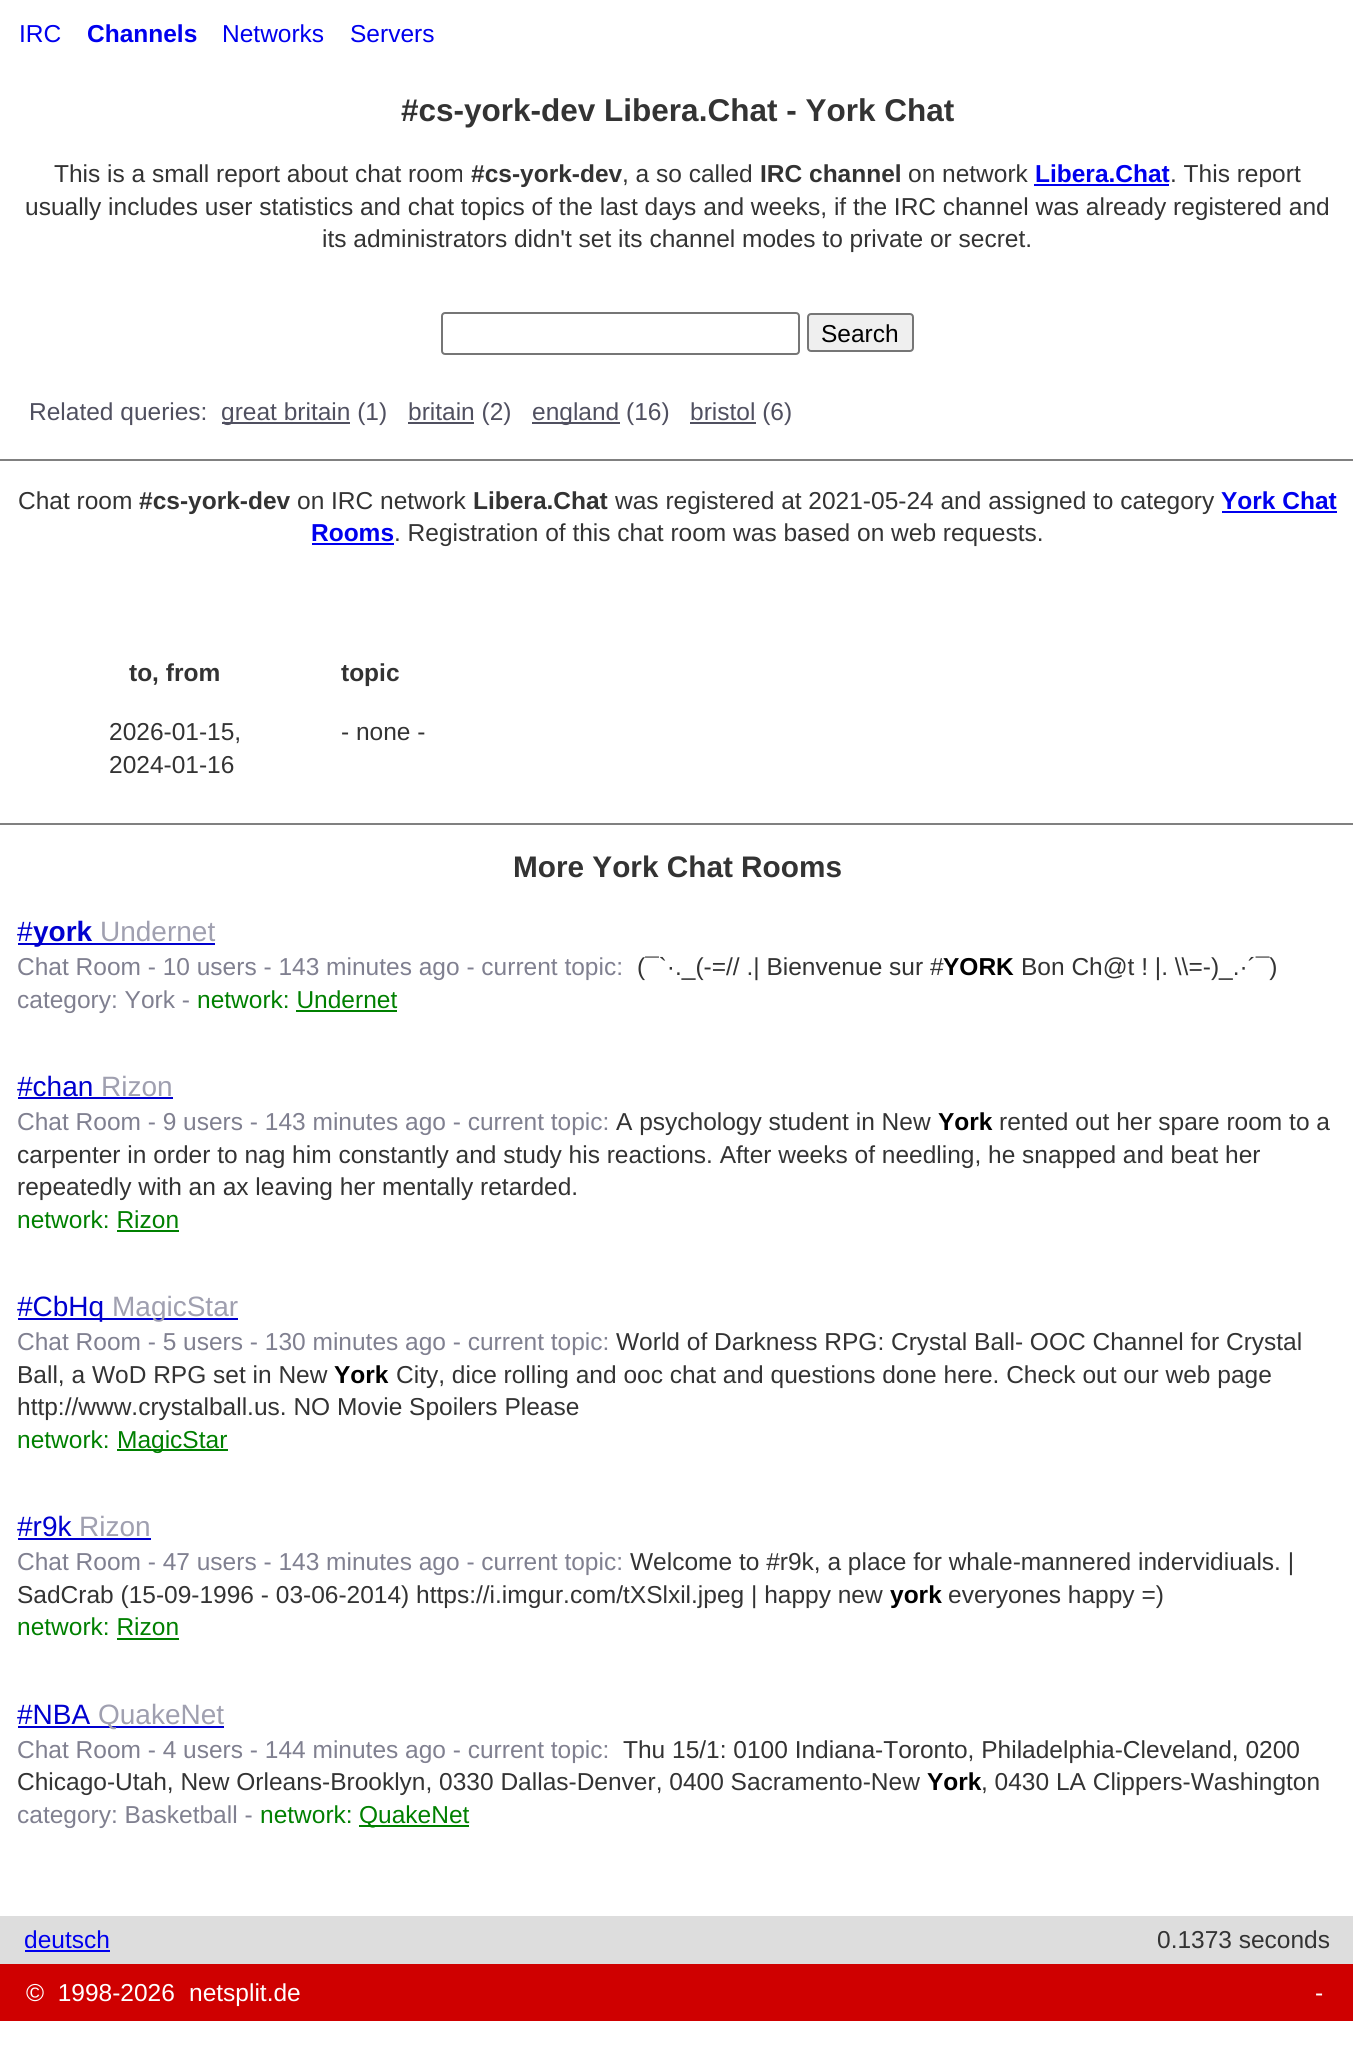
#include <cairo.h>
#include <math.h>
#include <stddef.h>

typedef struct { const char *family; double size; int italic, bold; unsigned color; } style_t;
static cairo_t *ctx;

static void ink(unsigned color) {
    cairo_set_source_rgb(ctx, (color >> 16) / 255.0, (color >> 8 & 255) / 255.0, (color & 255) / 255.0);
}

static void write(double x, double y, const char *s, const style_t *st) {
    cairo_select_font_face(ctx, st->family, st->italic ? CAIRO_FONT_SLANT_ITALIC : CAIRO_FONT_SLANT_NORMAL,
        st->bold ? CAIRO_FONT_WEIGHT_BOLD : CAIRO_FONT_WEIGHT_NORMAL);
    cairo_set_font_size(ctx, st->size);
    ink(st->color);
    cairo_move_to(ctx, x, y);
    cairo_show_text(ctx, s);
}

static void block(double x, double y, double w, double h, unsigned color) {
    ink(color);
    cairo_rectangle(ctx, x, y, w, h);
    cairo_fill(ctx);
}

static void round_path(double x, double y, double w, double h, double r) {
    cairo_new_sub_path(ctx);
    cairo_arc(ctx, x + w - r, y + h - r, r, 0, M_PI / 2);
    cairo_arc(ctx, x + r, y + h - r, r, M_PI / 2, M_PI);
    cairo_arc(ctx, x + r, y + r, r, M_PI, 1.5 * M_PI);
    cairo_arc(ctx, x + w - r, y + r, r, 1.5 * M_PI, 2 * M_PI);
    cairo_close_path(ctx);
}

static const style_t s1 = {"Liberation Sans", 24.5, 0, 0, 0x0000ee};
static const style_t s2 = {"Liberation Sans", 24.5, 0, 1, 0x0000ee};
static const style_t s3 = {"Liberation Sans", 31.5, 0, 1, 0x333333};
static const style_t s4 = {"Liberation Sans", 24.5, 0, 0, 0x333333};
static const style_t s5 = {"Liberation Sans", 24.5, 0, 1, 0x333333};
static const style_t s6 = {"Liberation Sans", 24.5, 0, 0, 0x000000};
static const style_t s7 = {"Liberation Sans", 24.5, 0, 0, 0x505060};
static const style_t s8 = {"Liberation Sans", 29.75, 0, 1, 0x333333};
static const style_t s9 = {"Liberation Sans", 28, 0, 0, 0x0000cf};
static const style_t s10 = {"Liberation Sans", 28, 0, 1, 0x0000cf};
static const style_t s11 = {"Liberation Sans", 28, 0, 0, 0xa0a0b0};
static const style_t s12 = {"Liberation Sans", 24.5, 0, 0, 0x808090};
static const style_t s13 = {"Liberation Sans", 24.5, 0, 1, 0x000000};
static const style_t s14 = {"Liberation Sans", 24.5, 0, 0, 0x008000};
static const style_t s15 = {"Liberation Sans", 24.5, 0, 0, 0xffffff};

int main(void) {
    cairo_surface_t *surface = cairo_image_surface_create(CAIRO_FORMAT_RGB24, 1353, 2063);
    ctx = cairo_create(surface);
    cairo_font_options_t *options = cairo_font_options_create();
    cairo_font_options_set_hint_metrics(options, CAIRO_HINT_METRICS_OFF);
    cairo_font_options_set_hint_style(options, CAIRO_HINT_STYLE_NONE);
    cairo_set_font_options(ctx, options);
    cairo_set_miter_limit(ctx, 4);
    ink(0xffffff);
    cairo_paint(ctx);
    write(19, 42, "IRC", &s1);
    write(87, 42, "Channels", &s2);
    write(222, 42, "Networks", &s1);
    write(350, 42, "Servers", &s1);
    write(401, 121, "#cs-york-dev Libera.Chat - York Chat", &s3);
    write(54, 182, "This is a small report about chat room", &s4);
    write(471, 182, "#cs-york-dev", &s5);
    write(622, 182, ", a so called", &s4);
    write(760, 182, "IRC channel", &s5);
    write(908, 182, "on network", &s4);
    write(1035, 182, "Libera.Chat", &s2);
    block(1034, 184, 135, 2, 0x0000ee);
    write(1170, 182, ". This report", &s4);
    write(25, 215, "usually includes user statistics and chat topics of the last days and weeks, if the IRC channel was already registered and", &s4);
    write(322, 247, "its administrators didn't set its channel modes to private or secret.", &s4);
    round_path(442, 313, 357, 41, 3);
    ink(0x767676);
    cairo_stroke(ctx);
    ink(0xefefef);
    round_path(808, 314, 105, 37, 3);
    cairo_fill_preserve(ctx);
    ink(0x767676);
    cairo_stroke(ctx);
    write(821, 342, "Search", &s6);
    write(29, 420, "Related queries:", &s7);
    block(222, 422, 128, 2, 0x505060);
    write(221, 420, "great britain (1)", &s7);
    block(408, 422, 66, 2, 0x505060);
    write(408, 420, "britain (2)", &s7);
    block(532, 422, 88, 2, 0x505060);
    write(532, 420, "england (16)", &s7);
    block(690, 422, 66, 2, 0x505060);
    write(690, 420, "bristol (6)", &s7);
    block(0, 459, 1353, 2, 0x808080);
    write(18, 509, "Chat room", &s4);
    write(139, 509, "#cs-york-dev", &s5);
    write(297, 509, "on IRC network", &s4);
    write(473, 509, "Libera.Chat", &s5);
    write(615, 509, "was registered at 2021-05-24 and assigned to category", &s4);
    write(1221, 509, "York Chat", &s2);
    block(1222, 511, 115, 2, 0x0000ee);
    write(311, 541, "Rooms", &s2);
    block(312, 543, 82, 2, 0x0000ee);
    write(394, 541, ". Registration of this chat room was based on web requests.", &s4);
    write(129, 681, "to, from", &s5);
    write(341, 681, "topic", &s5);
    write(109, 740, "2026-01-15,", &s4);
    write(109, 773, "2024-01-16", &s4);
    write(341, 740, "- none -", &s4);
    block(0, 823, 1353, 2, 0x808080);
    write(513, 877, "More York Chat Rooms", &s8);
    write(17, 941, "#", &s9);
    block(18, 943, 197, 2, 0x0000cf);
    write(33, 941, "york", &s10);
    write(100, 941, "Undernet", &s11);
    write(17, 975, "Chat Room - 10 users - 143 minutes ago - current topic:", &s12);
    write(637, 975, "(¯`·._(-=// .| Bienvenue sur #", &s4);
    write(943, 975, "YORK", &s13);
    write(1021, 975, "Bon Ch@t ! |. \\\\=-)_.·´¯)", &s4);
    write(17, 1008, "category: York -", &s12);
    write(197, 1008, "network: Undernet", &s14);
    block(296, 1010, 101, 2, 0x008000);
    write(17, 1096, "#chan", &s9);
    block(18, 1097, 155, 2, 0x0000cf);
    write(101, 1096, "Rizon", &s11);
    write(17, 1130, "Chat Room - 9 users - 143 minutes ago - current topic:", &s12);
    write(616, 1130, "A psychology student in New", &s4);
    write(938, 1130, "York", &s13);
    write(999, 1130, "rented out her spare room to a", &s4);
    write(17, 1163, "carpenter in order to nag him constantly and study his reactions. After weeks of needling, he snapped and beat her", &s4);
    write(17, 1195, "repeatedly with an ax leaving her mentally retarded.", &s4);
    write(17, 1228, "network: Rizon", &s14);
    block(117, 1230, 62, 2, 0x008000);
    block(18, 1318, 220, 2, 0x0000cf);
    write(17, 1316, "#CbHq", &s9);
    write(112, 1316, "MagicStar", &s11);
    write(17, 1350, "Chat Room - 5 users - 130 minutes ago - current topic:", &s12);
    write(616, 1350, "World of Darkness RPG: Crystal Ball- OOC Channel for Crystal", &s4);
    write(17, 1383, "Ball, a WoD RPG set in New", &s4);
    write(334, 1383, "York", &s13);
    write(396, 1383, "City, dice rolling and ooc chat and questions done here. Check out our web page", &s4);
    write(17, 1415, "http://www.crystalball.us. NO Movie Spoilers Please", &s4);
    write(17, 1448, "network:", &s14);
    block(117, 1449, 111, 2, 0x008000);
    write(117, 1448, "MagicStar", &s14);
    write(17, 1536, "#r9k", &s9);
    block(18, 1538, 133, 2, 0x0000cf);
    write(79, 1536, "Rizon", &s11);
    write(17, 1570, "Chat Room - 47 users - 143 minutes ago - current topic:", &s12);
    write(630, 1570, "Welcome to #r9k, a place for whale-mannered indervidiuals. |", &s4);
    write(17, 1603, "SadCrab (15-09-1996 - 03-06-2014) https://i.imgur.com/tXSlxil.jpeg | happy new", &s4);
    write(890, 1603, "york", &s13);
    write(948, 1603, "everyones happy =)", &s4);
    write(17, 1635, "network: Rizon", &s14);
    block(117, 1638, 62, 2, 0x008000);
    write(17, 1724, "#NBA", &s9);
    block(18, 1726, 206, 2, 0x0000cf);
    write(98, 1724, "QuakeNet", &s11);
    write(17, 1758, "Chat Room - 4 users - 144 minutes ago - current topic:", &s12);
    write(623, 1758, "Thu 15/1: 0100 Indiana-Toronto, Philadelphia-Cleveland, 0200", &s4);
    write(17, 1790, "Chicago-Utah, New Orleans-Brooklyn, 0330 Dallas-Denver, 0400 Sacramento-New", &s4);
    write(927, 1790, "York", &s13);
    write(981, 1790, ", 0430 LA Clippers-Washington", &s4);
    write(17, 1823, "category: Basketball -", &s12);
    write(260, 1823, "network:", &s14);
    block(359, 1825, 110, 2, 0x008000);
    write(359, 1823, "QuakeNet", &s14);
    block(0, 1916, 1353, 48, 0xdddddd);
    write(24, 1948, "deutsch", &s1);
    block(25, 1950, 85, 2, 0x0000ee);
    write(1157, 1948, "0.1373 seconds", &s4);
    block(0, 1964, 1353, 57, 0xcf0000);
    write(26, 2001, "©  1998-2026", &s15);
    write(189, 2001, "netsplit.de", &s15);
    write(1315, 2001, "-", &s15);
    cairo_surface_write_to_png(surface, "screenshot.png");
    cairo_font_options_destroy(options);
    cairo_destroy(ctx);
    cairo_surface_destroy(surface);
    return 0;
}
